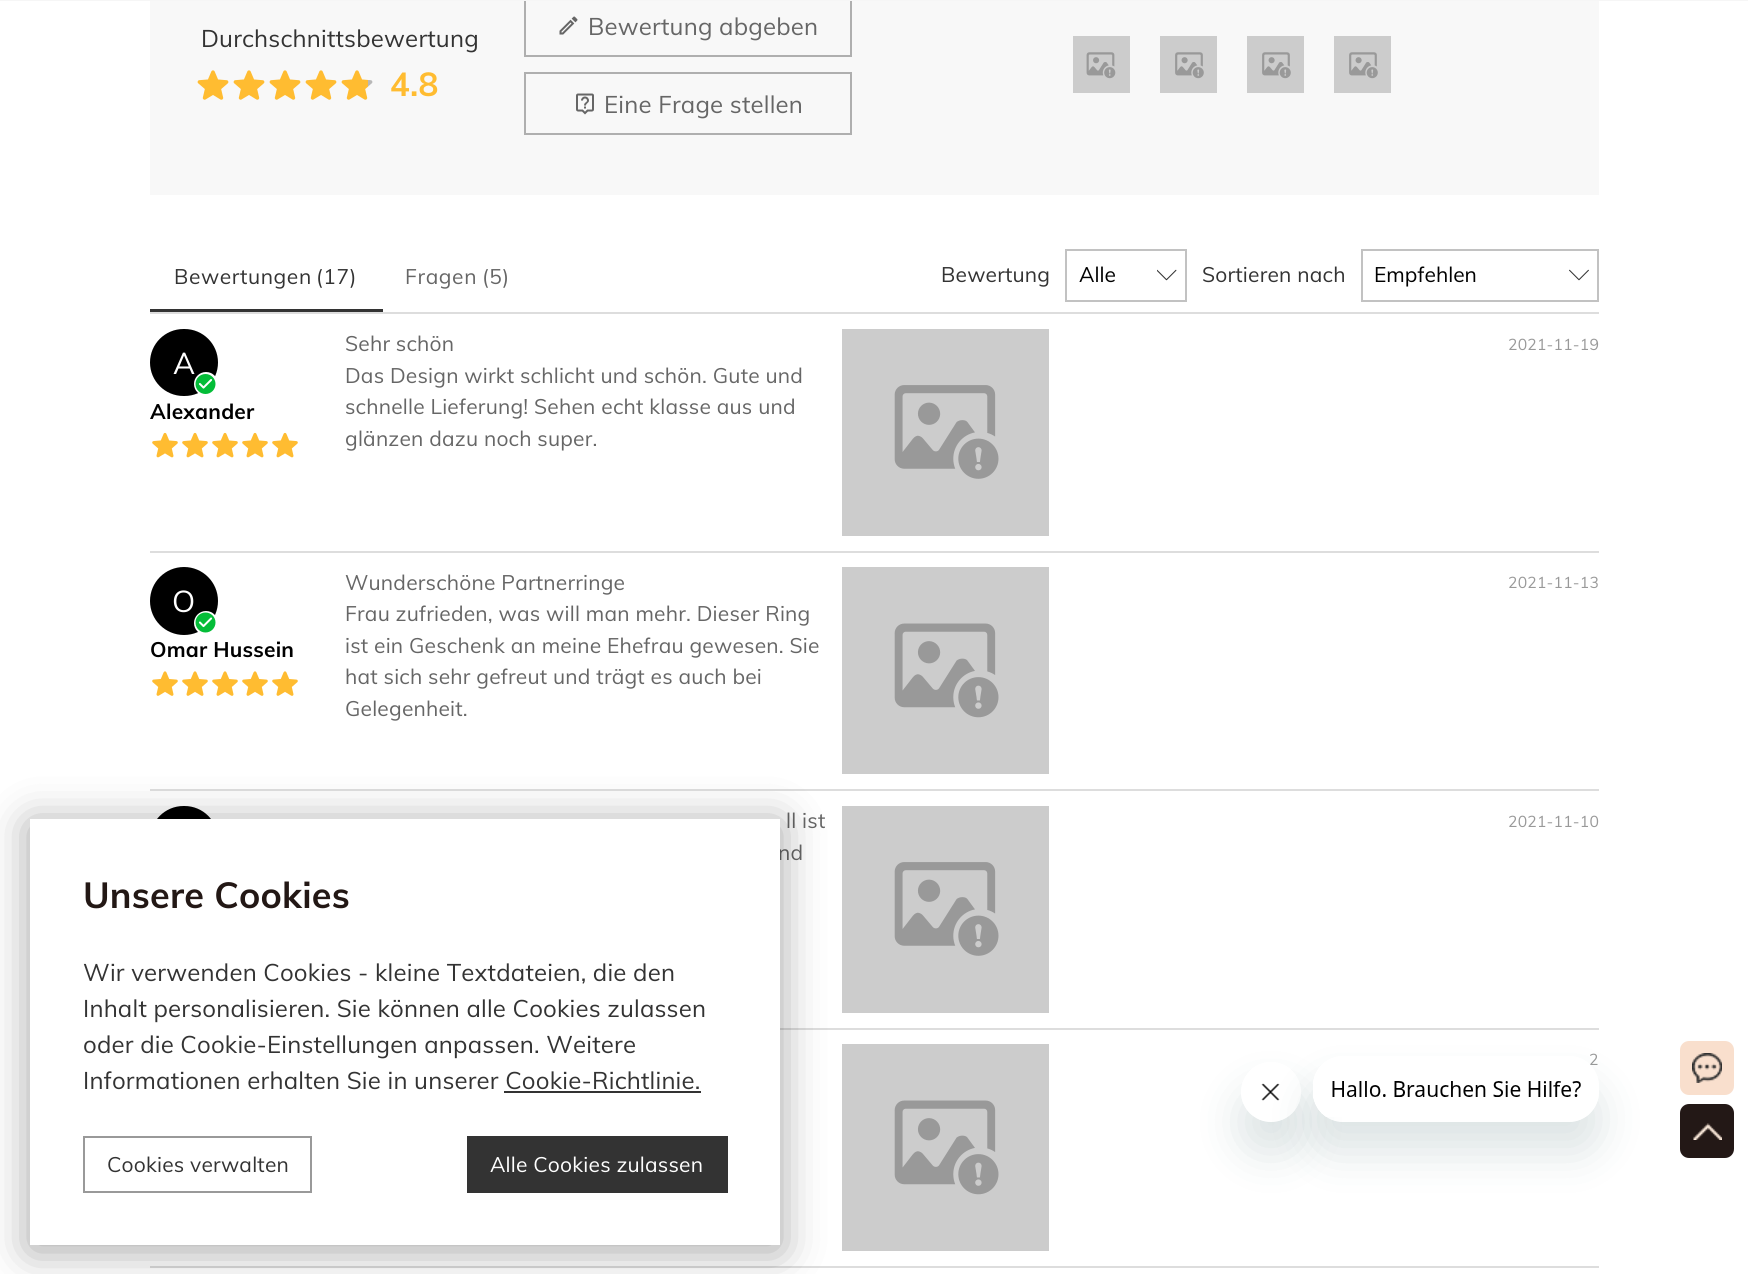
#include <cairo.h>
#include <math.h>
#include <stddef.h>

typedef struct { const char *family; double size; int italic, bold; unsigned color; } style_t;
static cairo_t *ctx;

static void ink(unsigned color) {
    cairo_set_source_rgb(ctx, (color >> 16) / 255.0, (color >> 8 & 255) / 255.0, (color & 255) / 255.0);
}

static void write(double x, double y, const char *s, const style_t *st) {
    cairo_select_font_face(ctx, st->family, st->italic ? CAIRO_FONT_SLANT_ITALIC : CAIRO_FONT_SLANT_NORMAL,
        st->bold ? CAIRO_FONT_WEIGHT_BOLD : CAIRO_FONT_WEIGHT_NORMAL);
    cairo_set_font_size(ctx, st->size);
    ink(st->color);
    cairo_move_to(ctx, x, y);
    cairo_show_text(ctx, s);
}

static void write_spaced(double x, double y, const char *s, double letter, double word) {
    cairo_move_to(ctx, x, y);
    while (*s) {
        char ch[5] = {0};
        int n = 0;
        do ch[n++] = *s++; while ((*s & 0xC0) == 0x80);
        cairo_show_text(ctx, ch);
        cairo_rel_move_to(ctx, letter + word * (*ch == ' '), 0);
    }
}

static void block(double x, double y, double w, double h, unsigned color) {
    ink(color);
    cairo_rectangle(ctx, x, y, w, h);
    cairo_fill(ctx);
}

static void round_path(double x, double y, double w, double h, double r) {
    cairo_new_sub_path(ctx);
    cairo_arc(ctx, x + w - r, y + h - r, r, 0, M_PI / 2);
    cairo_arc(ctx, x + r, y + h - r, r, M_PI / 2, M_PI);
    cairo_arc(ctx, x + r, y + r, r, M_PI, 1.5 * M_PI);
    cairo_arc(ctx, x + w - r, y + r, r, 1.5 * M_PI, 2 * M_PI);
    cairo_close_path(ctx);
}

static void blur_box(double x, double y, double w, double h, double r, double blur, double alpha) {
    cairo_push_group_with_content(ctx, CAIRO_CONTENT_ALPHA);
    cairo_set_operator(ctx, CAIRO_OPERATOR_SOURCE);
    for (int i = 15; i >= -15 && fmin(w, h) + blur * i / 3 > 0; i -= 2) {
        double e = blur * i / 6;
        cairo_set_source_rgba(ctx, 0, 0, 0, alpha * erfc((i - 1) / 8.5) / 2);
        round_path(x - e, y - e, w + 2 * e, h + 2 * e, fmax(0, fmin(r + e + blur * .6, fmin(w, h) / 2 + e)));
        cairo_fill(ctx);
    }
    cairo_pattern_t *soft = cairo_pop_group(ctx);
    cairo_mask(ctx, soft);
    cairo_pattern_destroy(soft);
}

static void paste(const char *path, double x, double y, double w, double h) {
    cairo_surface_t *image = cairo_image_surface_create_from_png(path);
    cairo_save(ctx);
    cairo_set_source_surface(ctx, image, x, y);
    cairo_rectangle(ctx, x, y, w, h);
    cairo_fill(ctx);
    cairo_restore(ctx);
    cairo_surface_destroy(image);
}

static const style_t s1 = {"Muli", 21, 0, 0, 0x000000};

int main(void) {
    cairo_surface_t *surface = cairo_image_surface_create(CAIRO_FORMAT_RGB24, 1748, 1274);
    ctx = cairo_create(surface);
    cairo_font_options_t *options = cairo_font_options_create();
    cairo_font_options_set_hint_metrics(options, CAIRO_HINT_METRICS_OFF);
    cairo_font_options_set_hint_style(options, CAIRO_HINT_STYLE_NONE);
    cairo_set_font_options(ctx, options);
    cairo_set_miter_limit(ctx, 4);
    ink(0xffffff);
    cairo_paint(ctx);
    block(150, 1, 1449, 194, 0xf8f8f8);
    cairo_rectangle(ctx, 525, -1, 326, 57);
    ink(0xafafaf);
    cairo_stroke(ctx);
    block(0, 0, 1748, 1, 0xf6f6f6);
    cairo_select_font_face(ctx, "Muli", CAIRO_FONT_SLANT_NORMAL, CAIRO_FONT_WEIGHT_NORMAL);
    cairo_set_font_size(ctx, 24);
    ink(0x333333);
    write_spaced(201, 47, "Durchschnittsbewertung", 0.2, 0);
    paste("pic1.png", 197, 70, 32, 30);
    paste("pic1.png", 233, 70, 32, 30);
    paste("pic1.png", 269, 70, 32, 30);
    paste("pic1.png", 305, 70, 32, 30);
    paste("pic2.png", 341, 70, 27, 30);
    paste("pic3.png", 368, 80, 5, 7);
    cairo_select_font_face(ctx, "Muli", CAIRO_FONT_SLANT_NORMAL, CAIRO_FONT_WEIGHT_BOLD);
    cairo_set_font_size(ctx, 33);
    ink(0xffbc31);
    write_spaced(390, 96, "4.8", 0.2, 0);
    paste("pic4.png", 559, 16, 19, 19);
    cairo_select_font_face(ctx, "Muli", CAIRO_FONT_SLANT_NORMAL, CAIRO_FONT_WEIGHT_NORMAL);
    cairo_set_font_size(ctx, 24);
    ink(0x666666);
    write_spaced(588, 35, "Bewertung abgeben", 0.2, 0);
    cairo_rectangle(ctx, 525, 73, 326, 61);
    ink(0xafafaf);
    cairo_stroke(ctx);
    paste("pic5.png", 576, 93, 18, 22);
    ink(0x666666);
    write_spaced(604, 113, "Eine Frage stellen", 0.2, 0);
    block(1073, 36, 57, 57, 0xcccccc);
    paste("pic6.png", 1086, 52, 30, 27);
    block(1160, 36, 57, 57, 0xcccccc);
    paste("pic7.png", 1175, 52, 29, 27);
    block(1247, 36, 57, 57, 0xcccccc);
    paste("pic7.png", 1262, 52, 29, 27);
    block(1334, 36, 57, 57, 0xcccccc);
    paste("pic7.png", 1349, 52, 29, 27);
    block(150, 312, 1449, 2, 0xdddddd);
    cairo_set_font_size(ctx, 21);
    ink(0x333333);
    write_spaced(174, 284, "Bewertungen", 0.6, 0);
    write_spaced(316, 284, "(17)", 0.6, 0);
    ink(0x666666);
    write_spaced(405, 284, "Fragen", 0.6, 0);
    write_spaced(482, 284, "(5)", 0.6, 0);
    block(150, 309, 233, 3, 0x333333);
    write_spaced(941, 282, "Bewertung", 0.2, 0);
    cairo_rectangle(ctx, 1066, 250, 120, 51);
    ink(0xc2c2c2);
    cairo_stroke(ctx);
    write(1079, 282, "Alle", &s1);
    paste("pic8.png", 1157, 269, 20, 12);
    ink(0x333333);
    write_spaced(1202, 282, "Sortieren nach", 0.2, 0);
    cairo_rectangle(ctx, 1362, 250, 236, 51);
    ink(0xc2c2c2);
    cairo_stroke(ctx);
    write(1374, 282, "Empfehlen", &s1);
    paste("pic9.png", 1569, 269, 20, 12);
    block(150, 551, 1449, 2, 0xdddddd);
    ink(0x666666);
    write_spaced(345, 351, "Sehr schön", 0.2, 0);
    write_spaced(345, 383, "Das Design wirkt schlicht und schön. Gute und", 0.2, 0);
    write_spaced(345, 414, "schnelle Lieferung! Sehen echt klasse aus und", 0.2, 0);
    write_spaced(345, 446, "glänzen dazu noch super.", 0.2, 0);
    block(842, 329, 207, 207, 0xcccccc);
    paste("pic10.png", 894, 385, 105, 94);
    cairo_set_font_size(ctx, 15.75);
    ink(0x999999);
    write_spaced(1508, 350, "2021-11-19", 0.2, 0);
    ink(0x000000);
    round_path(150, 329, 68, 67, 33.5);
    cairo_fill(ctx);
    cairo_set_font_size(ctx, 30);
    ink(0xffffff);
    write_spaced(173, 374, "A", 0.2, 0);
    cairo_new_path(ctx);
    cairo_arc(ctx, 206, 384, 12, 0, 2 * M_PI);
    cairo_fill(ctx);
    paste("pic11.png", 195, 374, 21, 20);
    cairo_select_font_face(ctx, "Muli", CAIRO_FONT_SLANT_NORMAL, CAIRO_FONT_WEIGHT_BOLD);
    cairo_set_font_size(ctx, 21);
    ink(0x000000);
    write_spaced(150, 419, "Alexander", 0.2, 0);
    paste("pic12.png", 152, 432, 26, 26);
    paste("pic12.png", 182, 432, 26, 26);
    paste("pic12.png", 212, 432, 26, 26);
    paste("pic12.png", 242, 432, 26, 26);
    paste("pic12.png", 272, 432, 26, 26);
    block(150, 789, 1449, 2, 0xdddddd);
    cairo_select_font_face(ctx, "Muli", CAIRO_FONT_SLANT_NORMAL, CAIRO_FONT_WEIGHT_NORMAL);
    ink(0x666666);
    write_spaced(345, 590, "Wunderschöne Partnerringe", 0.2, 0);
    write_spaced(345, 621, "Frau zufrieden, was will man mehr. Dieser Ring", 0.2, 0);
    write_spaced(345, 653, "ist ein Geschenk an meine Ehefrau gewesen. Sie", 0.2, 0);
    write_spaced(345, 684, "hat sich sehr gefreut und trägt es auch bei", 0.2, 0);
    write_spaced(345, 716, "Gelegenheit.", 0.2, 0);
    block(842, 567, 207, 207, 0xcccccc);
    paste("pic13.png", 894, 623, 105, 95);
    cairo_set_font_size(ctx, 15.75);
    ink(0x999999);
    write_spaced(1508, 588, "2021-11-13", 0.2, 0);
    ink(0x000000);
    cairo_new_path(ctx);
    cairo_arc(ctx, 184, 601, 34, 0, 2 * M_PI);
    cairo_fill(ctx);
    cairo_set_font_size(ctx, 30);
    ink(0xffffff);
    write_spaced(172, 612, "O", 0.2, 0);
    cairo_new_path(ctx);
    cairo_arc(ctx, 206, 623, 12, 0, 2 * M_PI);
    cairo_fill(ctx);
    paste("pic14.png", 195, 612, 21, 21);
    cairo_select_font_face(ctx, "Muli", CAIRO_FONT_SLANT_NORMAL, CAIRO_FONT_WEIGHT_BOLD);
    cairo_set_font_size(ctx, 21);
    ink(0x000000);
    write_spaced(150, 657, "Omar Hussein", 0.2, 0);
    paste("pic15.png", 152, 671, 26, 25);
    paste("pic15.png", 182, 671, 26, 25);
    paste("pic15.png", 212, 671, 26, 25);
    paste("pic15.png", 242, 671, 26, 25);
    paste("pic15.png", 272, 671, 26, 25);
    block(780, 1028, 819, 2, 0xdddddd);
    ink(0x000000);
    round_path(150, 806, 68, 67, 33.5);
    cairo_fill(ctx);
    cairo_select_font_face(ctx, "Muli", CAIRO_FONT_SLANT_NORMAL, CAIRO_FONT_WEIGHT_NORMAL);
    ink(0x666666);
    write_spaced(786, 828, "ll ist", 0.2, 0);
    write_spaced(778, 860, "nd", 0.2, 0);
    block(842, 806, 207, 207, 0xcccccc);
    paste("pic10.png", 894, 862, 105, 94);
    cairo_set_font_size(ctx, 15.75);
    ink(0x999999);
    write_spaced(1508, 827, "2021-11-10", 0.2, 0);
    block(150, 1266, 1449, 2, 0xdddddd);
    block(842, 1044, 207, 207, 0xcccccc);
    paste("pic13.png", 894, 1100, 105, 95);
    ink(0x999999);
    write_spaced(1589, 1065, "2", 0.2, 0);
    ink(0x000000);
    blur_box(30, 824, 750, 426, 0, 22, 0.36);
    block(30, 819, 750, 426, 0xffffff);
    cairo_select_font_face(ctx, "Muli", CAIRO_FONT_SLANT_NORMAL, CAIRO_FONT_WEIGHT_BOLD);
    cairo_set_font_size(ctx, 36);
    ink(0x231815);
    write_spaced(83, 908, "Unsere Cookies", 0.2, 0);
    cairo_select_font_face(ctx, "Muli", CAIRO_FONT_SLANT_NORMAL, CAIRO_FONT_WEIGHT_NORMAL);
    cairo_set_font_size(ctx, 24);
    ink(0x333333);
    write_spaced(83, 981, "Wir verwenden Cookies - kleine Textdateien, die den", 0.2, 0);
    write_spaced(83, 1017, "Inhalt personalisieren. Sie können alle Cookies zulassen", 0.2, 0);
    write_spaced(83, 1053, "oder die Cookie-Einstellungen anpassen. Weitere", 0.2, 0);
    write_spaced(83, 1089, "Informationen erhalten Sie in unserer Cookie-Richtlinie.", 0.2, 0);
    block(504, 1091, 197, 2, 0x333333);
    cairo_rectangle(ctx, 84, 1137, 227, 55);
    ink(0x999999);
    cairo_stroke(ctx);
    cairo_set_font_size(ctx, 21);
    ink(0x333333);
    write_spaced(107, 1172, "Cookies verwalten", 0.2, 0);
    block(467, 1136, 261, 57, 0x333333);
    ink(0xffffff);
    write_spaced(490, 1172, "Alle Cookies zulassen", 0.2, 0);
    ink(0xf9dfcd);
    round_path(1680, 1041, 54, 54, 9);
    cairo_fill(ctx);
    paste("pic16.png", 1692, 1053, 30, 30);
    ink(0x231816);
    round_path(1680, 1104, 54, 54, 9);
    cairo_fill(ctx);
    paste("pic17.png", 1693, 1123, 29, 17);
    cairo_save(ctx);
    cairo_set_fill_rule(ctx, CAIRO_FILL_RULE_EVEN_ODD);
    cairo_new_path(ctx);
    cairo_move_to(ctx, 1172, 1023);
    cairo_line_to(ctx, 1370, 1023);
    cairo_line_to(ctx, 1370, 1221);
    cairo_line_to(ctx, 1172, 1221);
    cairo_close_path(ctx);
    cairo_move_to(ctx, 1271, 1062);
    cairo_curve_to(ctx, 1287.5, 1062, 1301, 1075.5, 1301, 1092);
    cairo_curve_to(ctx, 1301, 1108.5, 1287.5, 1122, 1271, 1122);
    cairo_curve_to(ctx, 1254.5, 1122, 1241, 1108.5, 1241, 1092);
    cairo_curve_to(ctx, 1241, 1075.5, 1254.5, 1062, 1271, 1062);
    cairo_close_path(ctx);
    cairo_clip(ctx);
    ink(0x17494d);
    blur_box(1241, 1092, 60, 60, 30, 22.5, 0.15);
    cairo_restore(ctx);
    paste("pic19.png", 1261, 1083, 19, 18);
    cairo_save(ctx);
    cairo_set_fill_rule(ctx, CAIRO_FILL_RULE_EVEN_ODD);
    cairo_new_path(ctx);
    cairo_move_to(ctx, 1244, 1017);
    cairo_line_to(ctx, 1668, 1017);
    cairo_line_to(ctx, 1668, 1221);
    cairo_line_to(ctx, 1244, 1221);
    cairo_close_path(ctx);
    cairo_move_to(ctx, 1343, 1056);
    cairo_line_to(ctx, 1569, 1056);
    cairo_curve_to(ctx, 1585.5, 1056, 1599, 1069.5, 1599, 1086);
    cairo_line_to(ctx, 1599, 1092);
    cairo_curve_to(ctx, 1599, 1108.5, 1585.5, 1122, 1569, 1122);
    cairo_line_to(ctx, 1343, 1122);
    cairo_curve_to(ctx, 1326.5, 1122, 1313, 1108.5, 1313, 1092);
    cairo_line_to(ctx, 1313, 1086);
    cairo_curve_to(ctx, 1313, 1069.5, 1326.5, 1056, 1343, 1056);
    cairo_close_path(ctx);
    cairo_clip(ctx);
    ink(0x17494d);
    blur_box(1313, 1086, 286, 66, 30, 22.5, 0.15);
    cairo_restore(ctx);
    paste("pic18.png", 1313, 1056, 276, 61);
    cairo_surface_write_to_png(surface, "screenshot.png");
    cairo_font_options_destroy(options);
    cairo_destroy(ctx);
    cairo_surface_destroy(surface);
    return 0;
}
